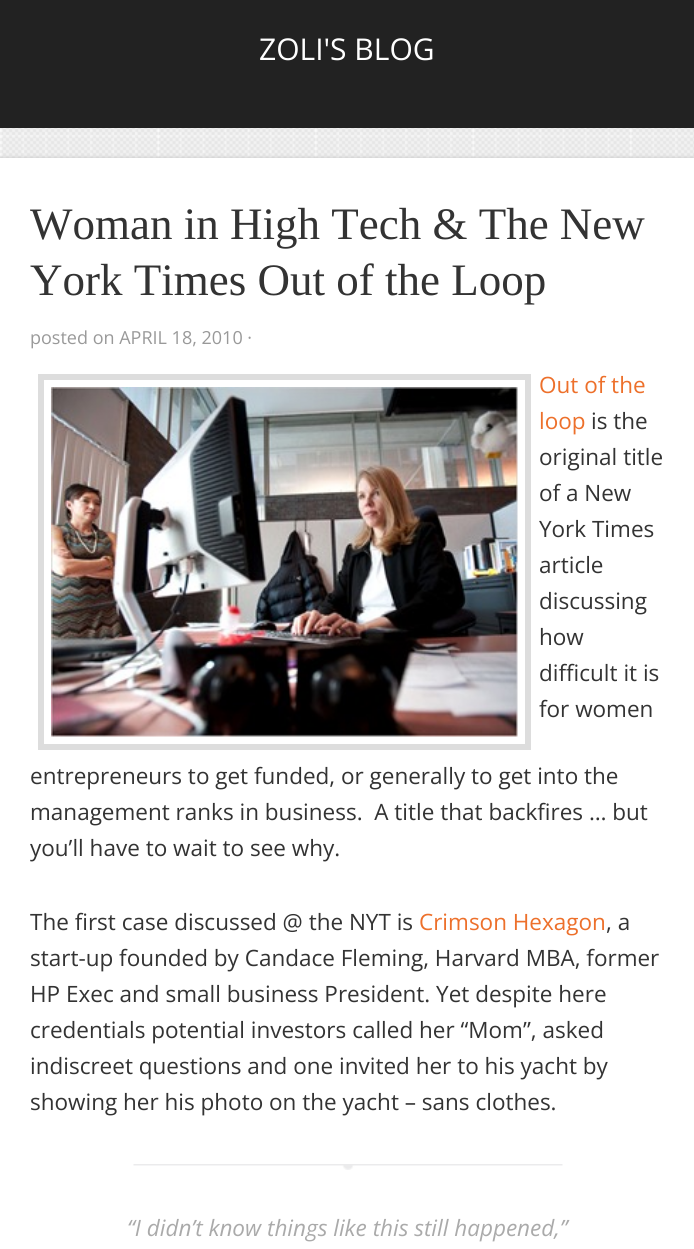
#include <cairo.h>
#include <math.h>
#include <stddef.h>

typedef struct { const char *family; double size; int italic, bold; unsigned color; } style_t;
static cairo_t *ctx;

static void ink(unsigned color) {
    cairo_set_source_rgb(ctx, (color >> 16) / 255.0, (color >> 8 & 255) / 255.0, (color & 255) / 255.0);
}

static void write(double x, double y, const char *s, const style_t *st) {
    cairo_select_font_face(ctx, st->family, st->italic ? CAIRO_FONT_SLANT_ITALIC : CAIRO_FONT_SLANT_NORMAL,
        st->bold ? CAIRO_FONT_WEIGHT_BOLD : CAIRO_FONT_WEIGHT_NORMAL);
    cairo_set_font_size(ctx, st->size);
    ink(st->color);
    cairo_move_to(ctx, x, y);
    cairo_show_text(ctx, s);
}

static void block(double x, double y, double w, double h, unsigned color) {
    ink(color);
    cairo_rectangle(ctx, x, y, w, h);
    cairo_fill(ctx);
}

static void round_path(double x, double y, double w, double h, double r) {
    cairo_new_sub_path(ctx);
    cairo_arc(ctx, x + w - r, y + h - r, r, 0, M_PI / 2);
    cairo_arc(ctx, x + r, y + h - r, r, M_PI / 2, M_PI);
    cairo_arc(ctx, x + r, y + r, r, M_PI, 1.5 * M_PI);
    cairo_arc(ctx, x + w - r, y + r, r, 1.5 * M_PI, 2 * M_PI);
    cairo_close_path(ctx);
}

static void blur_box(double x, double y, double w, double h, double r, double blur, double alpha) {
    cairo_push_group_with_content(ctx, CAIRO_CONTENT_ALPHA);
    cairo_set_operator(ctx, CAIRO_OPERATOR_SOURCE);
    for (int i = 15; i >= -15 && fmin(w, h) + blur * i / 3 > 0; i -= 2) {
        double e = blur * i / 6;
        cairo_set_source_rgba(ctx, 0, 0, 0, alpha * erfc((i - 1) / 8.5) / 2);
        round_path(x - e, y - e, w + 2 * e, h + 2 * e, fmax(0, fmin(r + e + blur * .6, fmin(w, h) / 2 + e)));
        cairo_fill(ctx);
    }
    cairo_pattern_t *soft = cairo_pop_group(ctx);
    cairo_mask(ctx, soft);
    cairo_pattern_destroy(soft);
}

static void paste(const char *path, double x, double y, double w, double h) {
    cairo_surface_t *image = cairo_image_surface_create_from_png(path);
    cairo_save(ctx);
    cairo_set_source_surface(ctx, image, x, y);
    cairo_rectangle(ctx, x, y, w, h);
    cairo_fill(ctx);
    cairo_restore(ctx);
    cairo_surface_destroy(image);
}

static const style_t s1 = {"Open Sans", 30, 0, 0, 0xffffff};
static const style_t s2 = {"Liberation Serif", 45, 0, 0, 0x333333};
static const style_t s3 = {"Open Sans", 18, 0, 0, 0x999999};
static const style_t s4 = {"Open Sans", 22.5, 0, 0, 0xed702b};
static const style_t s5 = {"Open Sans", 22.5, 0, 0, 0x333333};
static const style_t s6 = {"Open Sans", 22.5, 1, 0, 0xaaaaaa};

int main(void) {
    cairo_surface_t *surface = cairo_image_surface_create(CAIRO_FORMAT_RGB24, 694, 1249);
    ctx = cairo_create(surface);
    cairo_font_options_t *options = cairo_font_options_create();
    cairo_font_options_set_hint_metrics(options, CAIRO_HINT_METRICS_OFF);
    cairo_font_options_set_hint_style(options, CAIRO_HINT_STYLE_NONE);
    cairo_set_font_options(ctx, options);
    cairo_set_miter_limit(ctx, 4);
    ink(0xffffff);
    cairo_paint(ctx);
    paste("pic1.png", 0, 128, 694, 30);
    block(0, 0, 694, 128, 0x222222);
    write(259, 60, "ZOLI'S BLOG", &s1);
    ink(0xbbbbbb);
    blur_box(0, 158, 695, 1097, 0, 2, 1);
    block(0, 158, 694, 1091, 0xffffff);
    write(30, 239, "Woman in High Tech & The New", &s2);
    write(30, 295, "York Times Out of the Loop", &s2);
    write(30, 344, "posted on APRIL 18, 2010 ·", &s3);
    cairo_rectangle(ctx, 41, 377, 487, 370);
    ink(0xdddddd);
    cairo_set_line_width(ctx, 6);
    cairo_stroke(ctx);
    paste("pic2.png", 51, 387, 467, 350);
    write(539, 393, "Out of the", &s4);
    write(539, 429, "loop", &s4);
    write(591, 429, "is the", &s5);
    write(539, 465, "original title", &s5);
    write(539, 501, "of a New", &s5);
    write(539, 537, "York Times", &s5);
    write(539, 573, "article", &s5);
    write(539, 609, "discussing", &s5);
    write(539, 645, "how", &s5);
    write(539, 681, "difficult it is", &s5);
    write(539, 717, "for women", &s5);
    write(30, 784, "entrepreneurs to get funded, or generally to get into the", &s5);
    write(30, 820, "management ranks in business.  A title that backfires … but", &s5);
    write(30, 856, "you’ll have to wait to see why.", &s5);
    write(30, 930, "The first case discussed @ the NYT is", &s5);
    write(419, 930, "Crimson Hexagon", &s4);
    write(606, 930, ", a", &s5);
    write(30, 966, "start-up founded by Candace Fleming, Harvard MBA, former", &s5);
    write(30, 1002, "HP Exec and small business President. Yet despite here", &s5);
    write(30, 1038, "credentials potential investors called her “Mom”, asked", &s5);
    write(30, 1074, "indiscreet questions and one invited her to his yacht by", &s5);
    write(30, 1110, "showing her his photo on the yacht – sans clothes.", &s5);
    paste("pic3.png", 133, 1164, 430, 6);
    write(127, 1236, "“I didn’t know things like this still happened,”", &s6);
    cairo_surface_write_to_png(surface, "screenshot.png");
    cairo_font_options_destroy(options);
    cairo_destroy(ctx);
    cairo_surface_destroy(surface);
    return 0;
}
